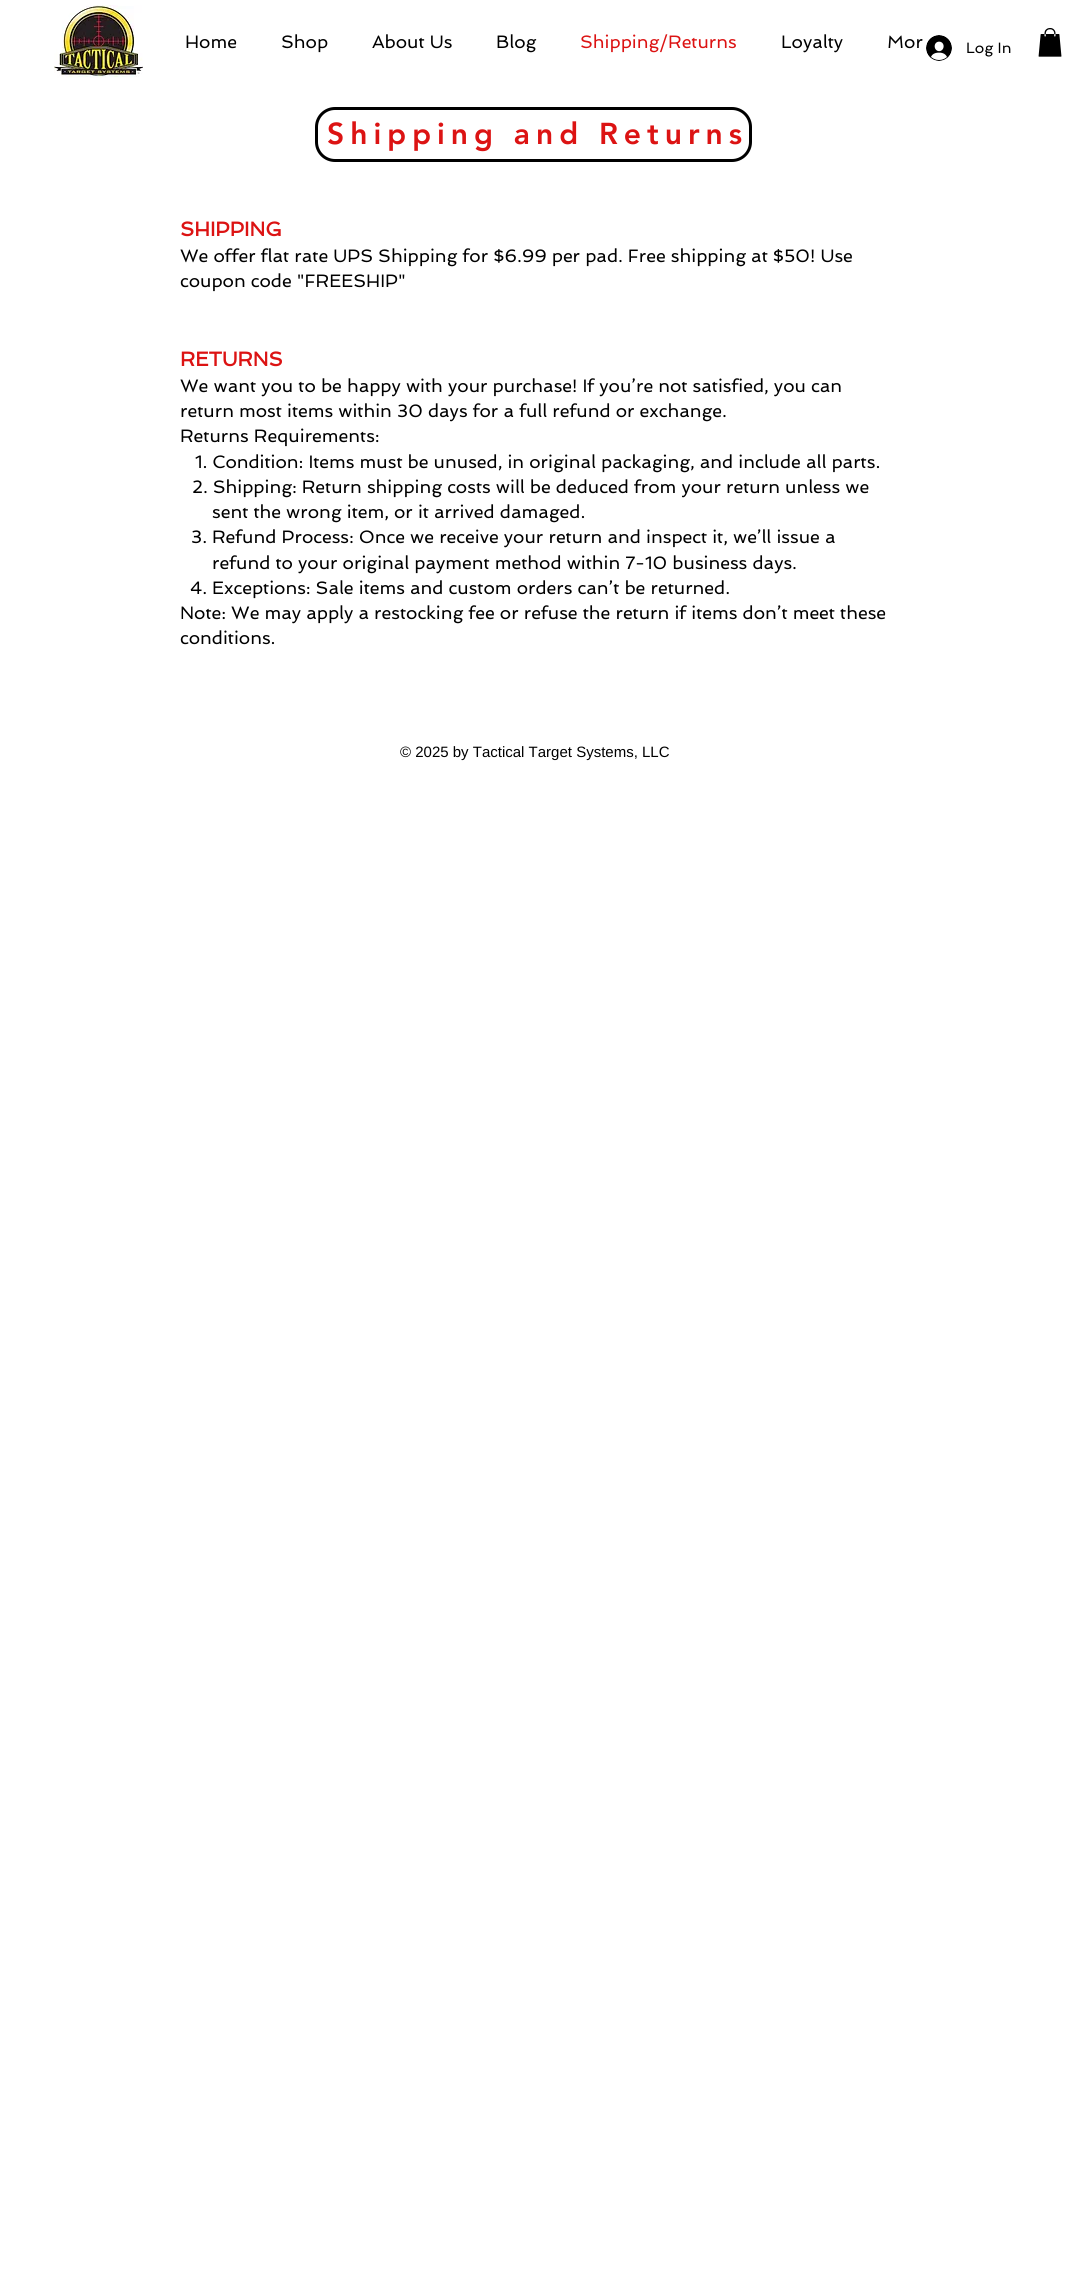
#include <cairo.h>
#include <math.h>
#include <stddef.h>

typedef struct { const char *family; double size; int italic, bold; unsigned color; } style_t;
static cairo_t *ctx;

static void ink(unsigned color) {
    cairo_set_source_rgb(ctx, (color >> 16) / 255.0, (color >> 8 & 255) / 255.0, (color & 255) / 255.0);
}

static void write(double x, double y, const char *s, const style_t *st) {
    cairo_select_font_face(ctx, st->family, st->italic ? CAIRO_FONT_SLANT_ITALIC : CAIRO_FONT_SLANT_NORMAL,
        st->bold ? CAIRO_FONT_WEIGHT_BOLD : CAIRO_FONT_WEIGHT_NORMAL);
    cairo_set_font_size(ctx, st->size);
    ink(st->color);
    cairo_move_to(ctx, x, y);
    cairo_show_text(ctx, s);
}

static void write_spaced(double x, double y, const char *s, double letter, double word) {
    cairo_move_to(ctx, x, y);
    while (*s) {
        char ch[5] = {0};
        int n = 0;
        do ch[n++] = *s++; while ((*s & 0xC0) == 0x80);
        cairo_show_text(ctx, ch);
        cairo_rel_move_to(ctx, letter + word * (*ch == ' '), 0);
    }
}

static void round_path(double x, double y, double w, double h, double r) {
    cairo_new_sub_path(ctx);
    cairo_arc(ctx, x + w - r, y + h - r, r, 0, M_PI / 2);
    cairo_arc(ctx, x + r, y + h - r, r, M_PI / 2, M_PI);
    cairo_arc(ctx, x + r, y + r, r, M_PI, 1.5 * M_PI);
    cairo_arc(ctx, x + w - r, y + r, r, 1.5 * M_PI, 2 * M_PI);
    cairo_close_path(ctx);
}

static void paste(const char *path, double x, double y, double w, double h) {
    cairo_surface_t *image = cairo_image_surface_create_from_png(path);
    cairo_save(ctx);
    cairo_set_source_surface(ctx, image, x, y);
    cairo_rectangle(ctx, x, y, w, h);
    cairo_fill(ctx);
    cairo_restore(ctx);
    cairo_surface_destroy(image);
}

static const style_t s1 = {"Spinnaker", 18, 0, 0, 0x000000};
static const style_t s2 = {"Spinnaker", 18, 0, 0, 0xdc1313};
static const style_t s3 = {"Spinnaker", 15, 0, 0, 0x000000};
static const style_t s4 = {"Spinnaker", 20, 0, 1, 0xdc1313};
static const style_t s5 = {"Liberation Sans", 15, 0, 0, 0x000000};

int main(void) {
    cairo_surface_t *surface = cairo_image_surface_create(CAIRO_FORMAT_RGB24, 1070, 2288);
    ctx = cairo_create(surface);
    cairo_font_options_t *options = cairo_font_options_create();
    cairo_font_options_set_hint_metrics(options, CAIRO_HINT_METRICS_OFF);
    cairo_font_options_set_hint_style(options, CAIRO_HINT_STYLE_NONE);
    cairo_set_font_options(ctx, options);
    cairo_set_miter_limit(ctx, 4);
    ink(0xffffff);
    cairo_paint(ctx);
    paste("pic1.png", 54, 5, 89, 73);
    write(185, 48, "Home", &s1);
    write(281, 48, "Shop", &s1);
    write(372, 48, "About Us", &s1);
    write(496, 48, "Blog", &s1);
    write(580, 48, "Shipping/Returns", &s2);
    write(781, 48, "Loyalty", &s1);
    write(887, 48, "Mor", &s1);
    paste("pic2.png", 926, 35, 26, 26);
    write(966, 53, "Log In", &s3);
    paste("pic3.png", 1038, 28, 24, 29);
    round_path(316.5, 108.5, 434, 52, 18.5);
    cairo_set_line_width(ctx, 3);
    cairo_stroke(ctx);
    cairo_select_font_face(ctx, "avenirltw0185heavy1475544 Black", CAIRO_FONT_SLANT_NORMAL, CAIRO_FONT_WEIGHT_NORMAL);
    cairo_set_font_size(ctx, 30);
    ink(0xdc1313);
    write_spaced(327, 144, "Shipping and Returns", 6, 0);
    write(180, 236, "SHIPPING", &s4);
    write(180, 262, "We offer flat rate UPS Shipping for $6.99 per pad. Free shipping at $50! Use", &s1);
    write(180, 287, "coupon code \"FREESHIP\"", &s1);
    write(180, 366, "RETURNS", &s4);
    write(180, 392, "We want you to be happy with your purchase! If you’re not satisfied, you can", &s1);
    write(180, 417, "return most items within 30 days for a full refund or exchange.", &s1);
    write(180, 442, "Returns Requirements:", &s1);
    write(195, 468, "1. Condition: Items must be unused, in original packaging, and include all parts.", &s1);
    write(192, 493, "2. Shipping: Return shipping costs will be deduced from your return unless we", &s1);
    write(212, 518, "sent the wrong item, or it arrived damaged.", &s1);
    write(191, 543, "3. Refund Process: Once we receive your return and inspect it, we’ll issue a", &s1);
    write(212, 569, "refund to your original payment method within 7-10 business days.", &s1);
    write(190, 594, "4. Exceptions: Sale items and custom orders can’t be returned.", &s1);
    write(180, 619, "Note: We may apply a restocking fee or refuse the return if items don’t meet these", &s1);
    write(180, 644, "conditions.", &s1);
    write(400, 757, "© 2025 by Tactical Target Systems, LLC", &s5);
    cairo_surface_write_to_png(surface, "screenshot.png");
    cairo_font_options_destroy(options);
    cairo_destroy(ctx);
    cairo_surface_destroy(surface);
    return 0;
}
